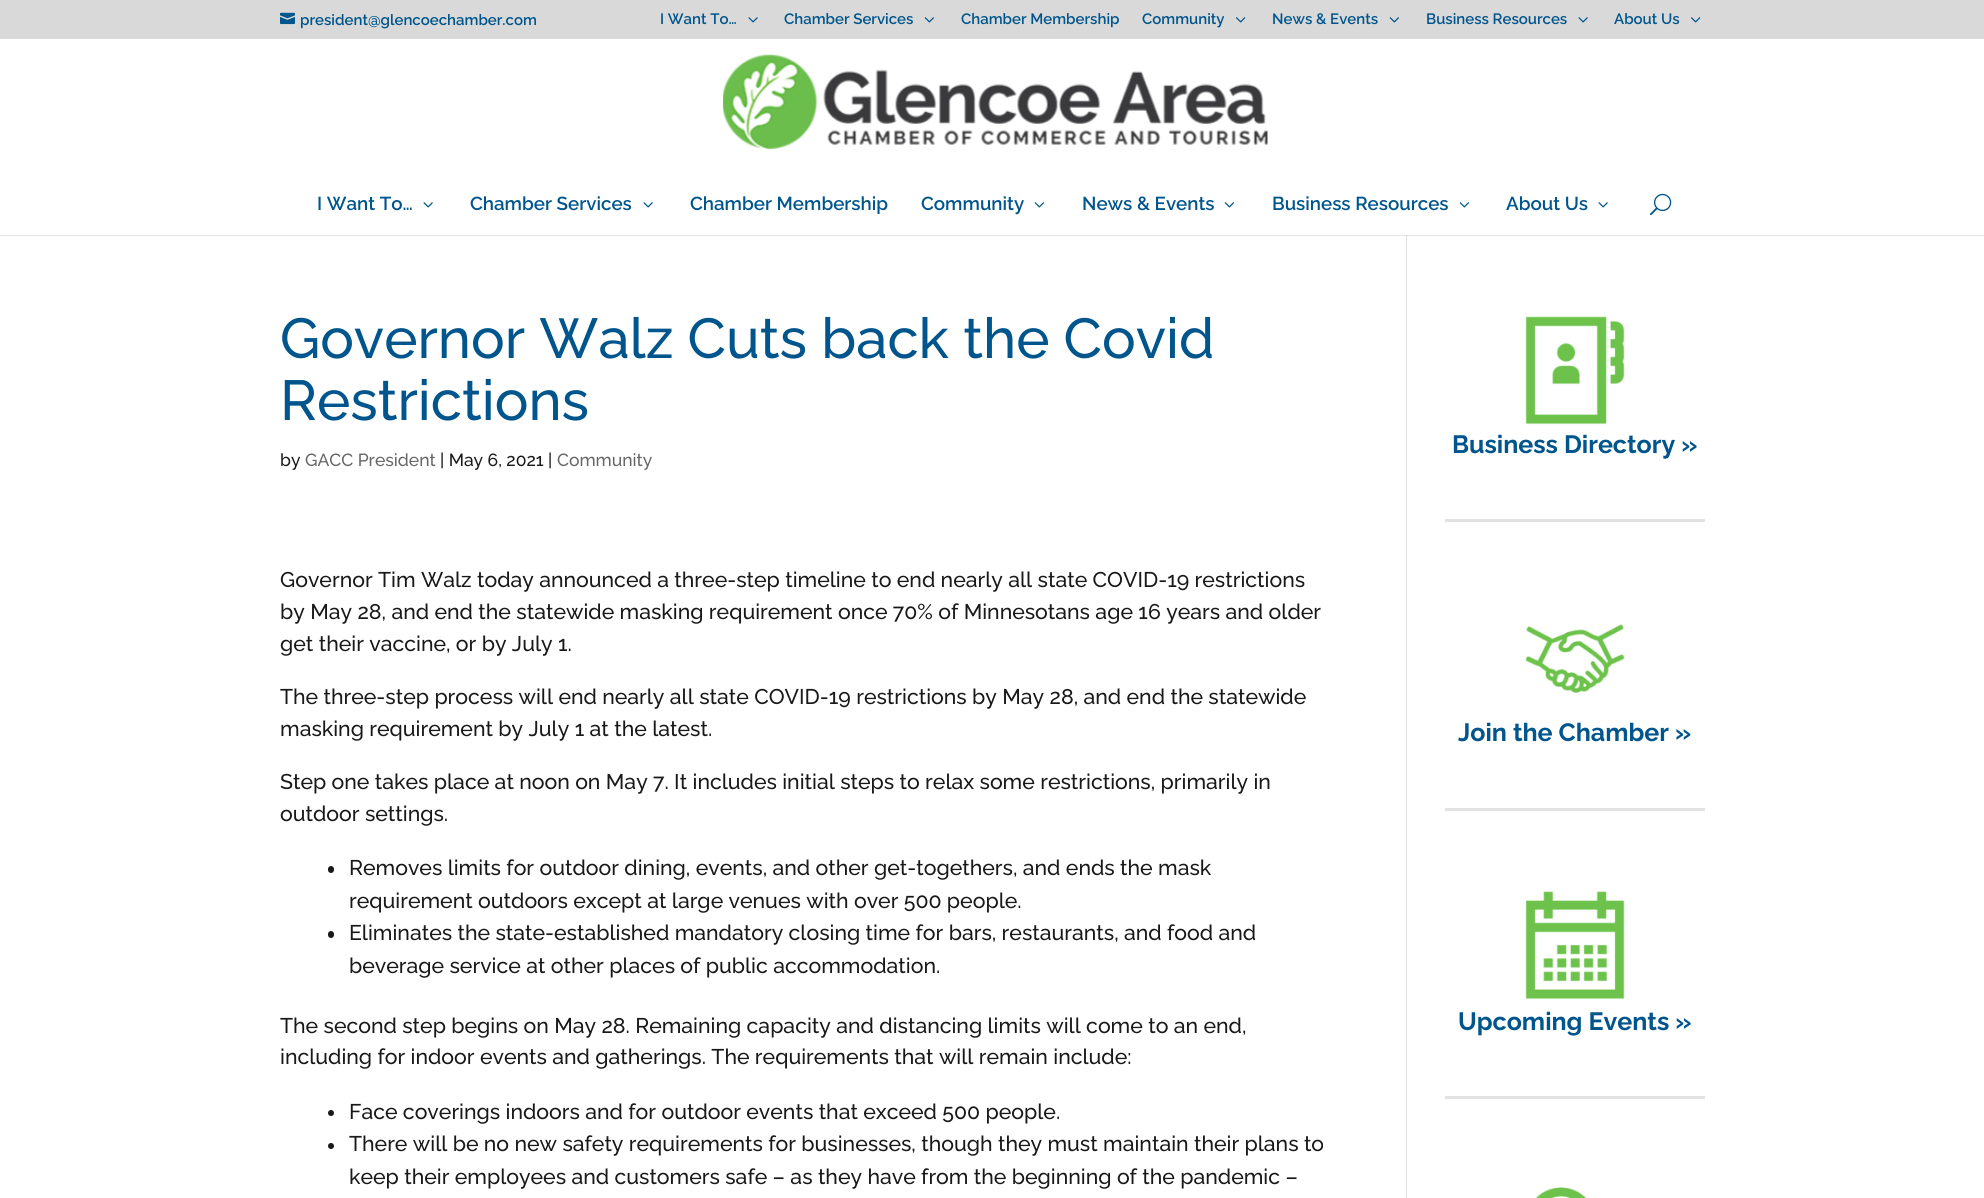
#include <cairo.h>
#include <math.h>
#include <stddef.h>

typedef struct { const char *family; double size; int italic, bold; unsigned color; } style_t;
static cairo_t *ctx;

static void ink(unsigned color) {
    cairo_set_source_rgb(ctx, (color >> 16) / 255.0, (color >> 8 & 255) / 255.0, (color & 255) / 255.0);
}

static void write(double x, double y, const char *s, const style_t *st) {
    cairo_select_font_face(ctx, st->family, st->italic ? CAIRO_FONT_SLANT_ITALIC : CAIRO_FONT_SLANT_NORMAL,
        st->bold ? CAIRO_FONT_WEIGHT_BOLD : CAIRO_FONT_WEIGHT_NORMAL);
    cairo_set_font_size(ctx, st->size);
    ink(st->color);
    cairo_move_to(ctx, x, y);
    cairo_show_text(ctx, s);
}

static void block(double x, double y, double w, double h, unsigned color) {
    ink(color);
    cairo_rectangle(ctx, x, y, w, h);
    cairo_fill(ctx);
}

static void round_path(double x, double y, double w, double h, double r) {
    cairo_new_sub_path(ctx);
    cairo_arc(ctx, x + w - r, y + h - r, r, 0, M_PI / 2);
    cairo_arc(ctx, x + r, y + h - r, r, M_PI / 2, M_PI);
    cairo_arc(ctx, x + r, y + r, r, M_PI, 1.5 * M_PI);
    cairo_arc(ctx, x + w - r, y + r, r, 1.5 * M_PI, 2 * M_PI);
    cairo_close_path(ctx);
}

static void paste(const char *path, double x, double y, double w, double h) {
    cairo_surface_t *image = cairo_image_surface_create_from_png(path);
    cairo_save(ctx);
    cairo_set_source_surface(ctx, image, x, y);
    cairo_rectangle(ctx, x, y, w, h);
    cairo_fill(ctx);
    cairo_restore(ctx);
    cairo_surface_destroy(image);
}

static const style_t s1 = {"Raleway SemiBold", 15, 0, 0, 0x00558c};
static const style_t s2 = {"Raleway SemiBold", 18.75, 0, 0, 0x00558c};
static const style_t s3 = {"Raleway Medium", 56.25, 0, 0, 0x00558c};
static const style_t s4 = {"Raleway Medium", 17.5, 0, 0, 0x191919};
static const style_t s5 = {"Raleway Medium", 17.5, 0, 0, 0x666666};
static const style_t s6 = {"Raleway Medium", 21.25, 0, 0, 0x191919};
static const style_t s7 = {"Raleway", 25, 0, 1, 0x00558c};

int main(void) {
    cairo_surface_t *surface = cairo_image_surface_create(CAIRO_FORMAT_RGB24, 1984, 1198);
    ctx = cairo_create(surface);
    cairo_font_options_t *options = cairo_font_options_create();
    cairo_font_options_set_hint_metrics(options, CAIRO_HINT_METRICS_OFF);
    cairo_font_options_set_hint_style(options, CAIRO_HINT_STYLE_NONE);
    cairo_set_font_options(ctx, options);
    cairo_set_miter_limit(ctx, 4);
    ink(0xffffff);
    cairo_paint(ctx);
    block(0, 235, 1984, 1, 0xe6e6e6);
    block(0, 0, 1984, 39, 0xd9d9d9);
    paste("pic1.png", 280, 12, 15, 13);
    write(300, 25, "president@glencoechamber.com", &s1);
    write(660, 24, "I Want To…", &s1);
    paste("pic2.png", 748, 17, 10, 6);
    write(784, 24, "Chamber Services", &s1);
    paste("pic3.png", 924, 17, 10, 6);
    write(961, 24, "Chamber Membership", &s1);
    write(1142, 24, "Community", &s1);
    paste("pic4.png", 1236, 17, 10, 6);
    write(1272, 24, "News & Events", &s1);
    paste("pic3.png", 1389, 17, 10, 6);
    write(1426, 24, "Business Resources", &s1);
    paste("pic2.png", 1578, 17, 10, 6);
    write(1614, 24, "About Us", &s1);
    paste("pic4.png", 1691, 17, 10, 6);
    paste("pic5.png", 723, 54, 545, 95);
    write(317, 210, "I Want To…", &s2);
    paste("pic6.png", 423, 202, 10, 6);
    write(470, 210, "Chamber Services", &s2);
    paste("pic6.png", 643, 202, 10, 6);
    write(690, 210, "Chamber Membership", &s2);
    write(921, 210, "Community", &s2);
    paste("pic7.png", 1034, 202, 10, 6);
    write(1082, 210, "News & Events", &s2);
    paste("pic7.png", 1224, 202, 10, 6);
    write(1272, 210, "Business Resources", &s2);
    paste("pic7.png", 1459, 202, 10, 6);
    write(1506, 210, "About Us", &s2);
    paste("pic6.png", 1598, 202, 10, 6);
    paste("pic8.png", 1650, 193, 22, 23);
    block(1406, 235, 1, 963, 0xe2e2e2);
    block(1406, 235, 1, 1, 0xcbcbcb);
    write(280, 358, "Governor Walz Cuts back the Covid", &s3);
    write(280, 420, "Restrictions", &s3);
    write(280, 466, "by", &s4);
    write(305, 466, "GACC President", &s5);
    write(440, 466, "| May 6, 2021 |", &s4);
    write(557, 466, "Community", &s5);
    write(280, 587, "Governor Tim Walz today announced a three-step timeline to end nearly all state COVID-19 restrictions", &s6);
    write(280, 619, "by May 28, and end the statewide masking requirement once 70% of Minnesotans age 16 years and older", &s6);
    write(280, 651, "get their vaccine, or by July 1.", &s6);
    write(280, 704, "The three-step process will end nearly all state COVID-19 restrictions by May 28, and end the statewide", &s6);
    write(280, 736, "masking requirement by July 1 at the latest.", &s6);
    write(280, 789, "Step one takes place at noon on May 7. It includes initial steps to relax some restrictions, primarily in", &s6);
    write(280, 821, "outdoor settings.", &s6);
    round_path(328, 866, 6, 7, 3);
    cairo_fill(ctx);
    write(349, 875, "Removes limits for outdoor dining, events, and other get-togethers, and ends the mask", &s6);
    write(349, 908, "requirement outdoors except at large venues with over 500 people.", &s6);
    round_path(328, 931, 6, 7, 3);
    cairo_fill(ctx);
    write(349, 940, "Eliminates the state-established mandatory closing time for bars, restaurants, and food and", &s6);
    write(349, 973, "beverage service at other places of public accommodation.", &s6);
    write(280, 1033, "The second step begins on May 28. Remaining capacity and distancing limits will come to an end,", &s6);
    write(280, 1064, "including for indoor events and gatherings. The requirements that will remain include:", &s6);
    cairo_new_path(ctx);
    cairo_arc(ctx, 331, 1113, 3, 0, 2 * M_PI);
    cairo_fill(ctx);
    write(349, 1119, "Face coverings indoors and for outdoor events that exceed 500 people.", &s6);
    cairo_new_path(ctx);
    cairo_arc(ctx, 331, 1146, 3, 0, 2 * M_PI);
    cairo_fill(ctx);
    write(349, 1151, "There will be no new safety requirements for businesses, though they must maintain their plans to", &s6);
    write(349, 1184, "keep their employees and customers safe – as they have from the beginning of the pandemic –", &s6);
    paste("pic9.png", 1525, 316, 100, 109);
    write(1452, 453, "Business Directory »", &s7);
    block(1445, 519, 260, 3, 0xe2e2e2);
    paste("pic10.png", 1525, 624, 100, 69);
    write(1458, 741, "Join the Chamber »", &s7);
    block(1445, 808, 260, 3, 0xe2e2e2);
    paste("pic11.png", 1525, 891, 100, 109);
    write(1458, 1030, "Upcoming Events »", &s7);
    block(1445, 1096, 260, 3, 0xe2e2e2);
    paste("pic12.png", 1536, 1187, 51, 11);
    cairo_surface_write_to_png(surface, "screenshot.png");
    cairo_font_options_destroy(options);
    cairo_destroy(ctx);
    cairo_surface_destroy(surface);
    return 0;
}
